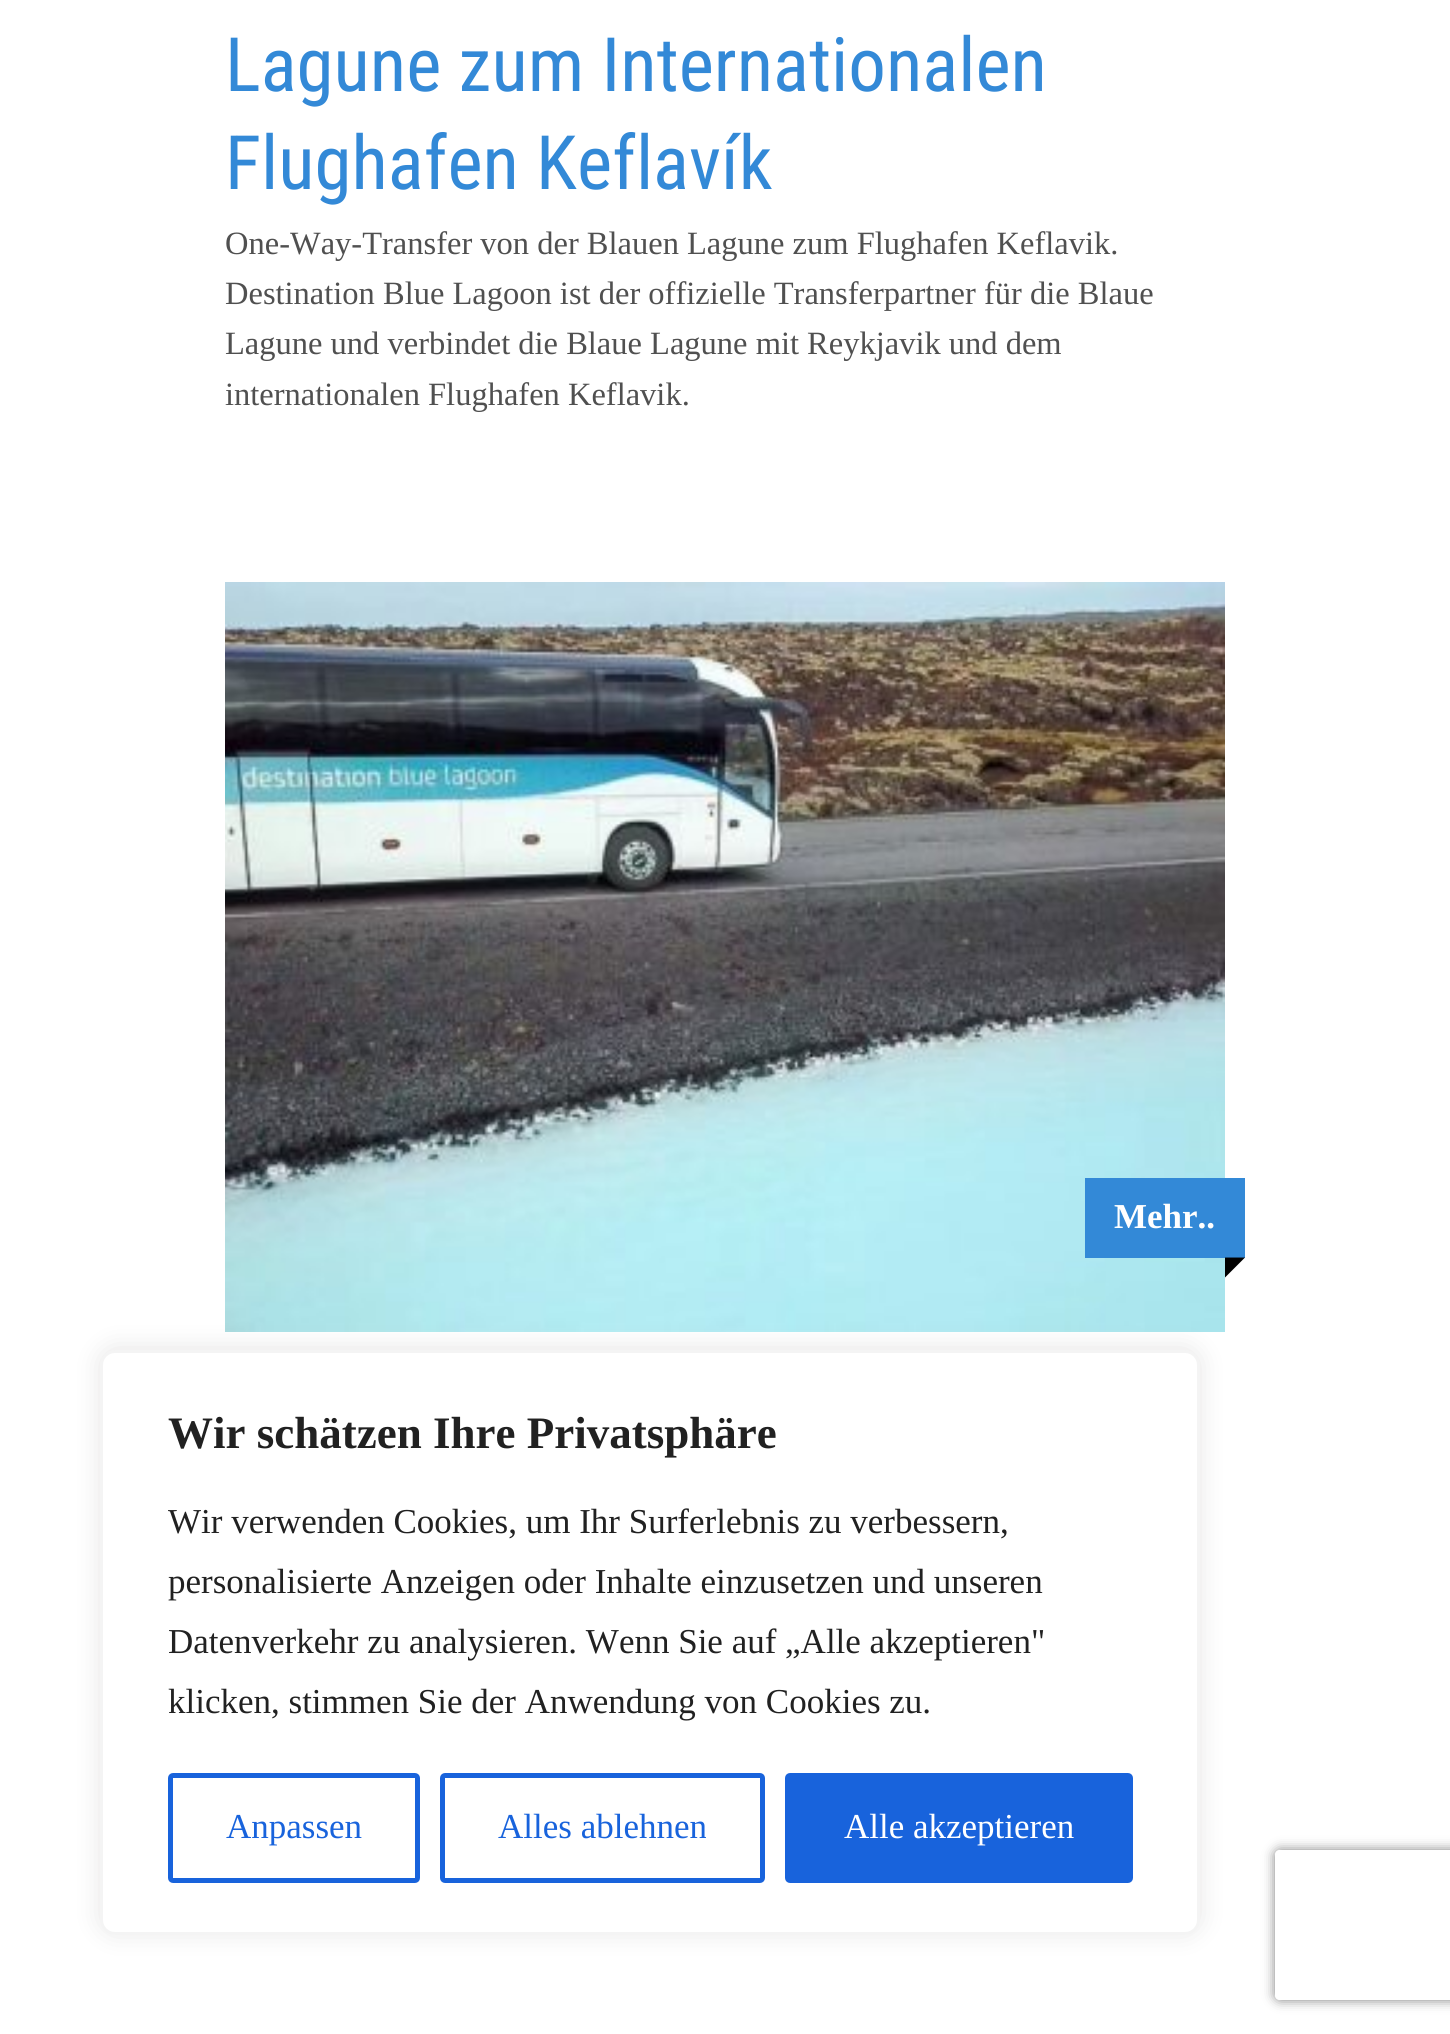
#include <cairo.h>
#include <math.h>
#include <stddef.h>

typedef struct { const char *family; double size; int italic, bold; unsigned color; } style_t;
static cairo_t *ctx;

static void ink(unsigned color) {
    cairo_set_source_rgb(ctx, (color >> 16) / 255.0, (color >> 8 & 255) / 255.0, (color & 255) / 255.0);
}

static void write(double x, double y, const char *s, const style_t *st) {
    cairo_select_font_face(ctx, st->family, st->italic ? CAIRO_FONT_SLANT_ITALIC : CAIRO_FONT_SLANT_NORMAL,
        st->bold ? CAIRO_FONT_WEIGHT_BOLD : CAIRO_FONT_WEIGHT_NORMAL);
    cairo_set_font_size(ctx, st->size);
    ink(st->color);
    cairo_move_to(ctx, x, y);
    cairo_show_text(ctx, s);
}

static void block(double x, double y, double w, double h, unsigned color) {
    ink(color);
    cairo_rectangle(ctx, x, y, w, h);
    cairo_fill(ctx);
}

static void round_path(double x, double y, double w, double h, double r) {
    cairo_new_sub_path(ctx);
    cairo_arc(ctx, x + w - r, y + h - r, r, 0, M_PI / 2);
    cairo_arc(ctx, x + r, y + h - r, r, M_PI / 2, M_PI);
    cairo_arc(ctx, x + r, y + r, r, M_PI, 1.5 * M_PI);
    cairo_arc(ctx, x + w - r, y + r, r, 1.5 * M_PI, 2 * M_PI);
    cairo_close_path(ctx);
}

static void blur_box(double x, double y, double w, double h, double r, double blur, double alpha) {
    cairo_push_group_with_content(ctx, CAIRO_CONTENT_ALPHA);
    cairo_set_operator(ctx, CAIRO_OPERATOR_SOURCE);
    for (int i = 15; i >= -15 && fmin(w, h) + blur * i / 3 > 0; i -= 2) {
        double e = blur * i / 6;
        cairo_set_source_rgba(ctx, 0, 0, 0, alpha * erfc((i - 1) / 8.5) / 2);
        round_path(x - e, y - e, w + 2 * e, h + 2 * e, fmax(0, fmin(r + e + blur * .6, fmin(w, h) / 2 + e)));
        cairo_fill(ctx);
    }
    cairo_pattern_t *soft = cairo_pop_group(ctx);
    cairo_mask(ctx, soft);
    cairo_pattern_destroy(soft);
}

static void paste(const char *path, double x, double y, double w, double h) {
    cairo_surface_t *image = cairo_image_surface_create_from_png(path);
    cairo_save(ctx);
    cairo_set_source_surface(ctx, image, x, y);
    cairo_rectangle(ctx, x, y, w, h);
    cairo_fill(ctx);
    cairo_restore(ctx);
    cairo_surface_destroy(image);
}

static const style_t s1 = {"Roboto Condensed", 75, 0, 0, 0x3389d7};
static const style_t s2 = {"Liberation Serif", 32.5, 0, 0, 0x505050};
static const style_t s3 = {"Liberation Serif", 35, 0, 1, 0xffffff};
static const style_t s4 = {"Liberation Serif", 45, 0, 1, 0x212121};
static const style_t s5 = {"Liberation Serif", 35, 0, 0, 0x212121};
static const style_t s6 = {"Liberation Serif", 35, 0, 0, 0x1863dc};
static const style_t s7 = {"Liberation Serif", 35, 0, 0, 0xffffff};

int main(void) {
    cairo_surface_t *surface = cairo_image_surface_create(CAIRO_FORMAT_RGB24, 1450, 2034);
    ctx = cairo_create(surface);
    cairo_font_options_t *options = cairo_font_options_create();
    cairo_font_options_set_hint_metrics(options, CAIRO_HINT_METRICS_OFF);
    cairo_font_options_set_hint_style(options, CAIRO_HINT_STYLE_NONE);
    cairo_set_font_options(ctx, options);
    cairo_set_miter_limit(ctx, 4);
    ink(0xffffff);
    cairo_paint(ctx);
    write(225, 91, "Lagune zum Internationalen", &s1);
    write(225, 189, "Flughafen Keflavík", &s1);
    write(225, 254, "One-Way-Transfer von der Blauen Lagune zum Flughafen Keflavik.", &s2);
    write(225, 304, "Destination Blue Lagoon ist der offizielle Transferpartner für die Blaue", &s2);
    write(225, 354, "Lagune und verbindet die Blaue Lagune mit Reykjavik und dem", &s2);
    write(225, 405, "internationalen Flughafen Keflavik.", &s2);
    paste("pic1.png", 225, 582, 1000, 750);
    block(1085, 1178, 160, 80, 0x3389d7);
    write(1114, 1228, "Mehr..", &s3);
    ink(0x000000);
    cairo_new_path(ctx);
    cairo_move_to(ctx, 1225, 1257.5);
    cairo_line_to(ctx, 1245, 1257.5);
    cairo_line_to(ctx, 1225, 1277.5);
    cairo_close_path(ctx);
    cairo_fill(ctx);
    ink(0xacabab);
    blur_box(100, 1348, 1100, 585, 15, 12.5, 0.3);
    ink(0xffffff);
    round_path(101.5, 1351.5, 1097, 582, 13.5);
    cairo_fill_preserve(ctx);
    ink(0xf4f4f4);
    cairo_set_line_width(ctx, 3);
    cairo_stroke(ctx);
    write(168, 1448, "Wir schätzen Ihre Privatsphäre", &s4);
    write(168, 1533, "Wir verwenden Cookies, um Ihr Surferlebnis zu verbessern,", &s5);
    write(168, 1593, "personalisierte Anzeigen oder Inhalte einzusetzen und unseren", &s5);
    write(168, 1653, "Datenverkehr zu analysieren. Wenn Sie auf „Alle akzeptieren\"", &s5);
    write(168, 1713, "klicken, stimmen Sie der Anwendung von Cookies zu.", &s5);
    round_path(170.5, 1775.5, 247, 105, 2.5);
    ink(0x1863dc);
    cairo_set_line_width(ctx, 5);
    cairo_stroke(ctx);
    write(226, 1838, "Anpassen", &s6);
    round_path(442.5, 1775.5, 320, 105, 2.5);
    cairo_stroke(ctx);
    write(498, 1838, "Alles ablehnen", &s6);
    round_path(787.5, 1775.5, 343, 105, 2.5);
    cairo_fill_preserve(ctx);
    cairo_stroke(ctx);
    write(844, 1838, "Alle akzeptieren", &s7);
    cairo_save(ctx);
    cairo_set_fill_rule(ctx, CAIRO_FILL_RULE_EVEN_ODD);
    cairo_new_path(ctx);
    cairo_move_to(ctx, 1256, 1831);
    cairo_line_to(ctx, 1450, 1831);
    cairo_line_to(ctx, 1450, 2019);
    cairo_line_to(ctx, 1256, 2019);
    cairo_close_path(ctx);
    cairo_move_to(ctx, 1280, 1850);
    cairo_line_to(ctx, 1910, 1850);
    cairo_curve_to(ctx, 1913, 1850, 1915, 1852, 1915, 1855);
    cairo_line_to(ctx, 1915, 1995);
    cairo_curve_to(ctx, 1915, 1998, 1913, 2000, 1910, 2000);
    cairo_line_to(ctx, 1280, 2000);
    cairo_curve_to(ctx, 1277, 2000, 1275, 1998, 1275, 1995);
    cairo_line_to(ctx, 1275, 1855);
    cairo_curve_to(ctx, 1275, 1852, 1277, 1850, 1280, 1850);
    cairo_close_path(ctx);
    cairo_clip(ctx);
    ink(0x808080);
    blur_box(1275, 1850, 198, 150, 5, 6, 1);
    cairo_restore(ctx);
    cairo_surface_write_to_png(surface, "screenshot.png");
    cairo_font_options_destroy(options);
    cairo_destroy(ctx);
    cairo_surface_destroy(surface);
    return 0;
}
